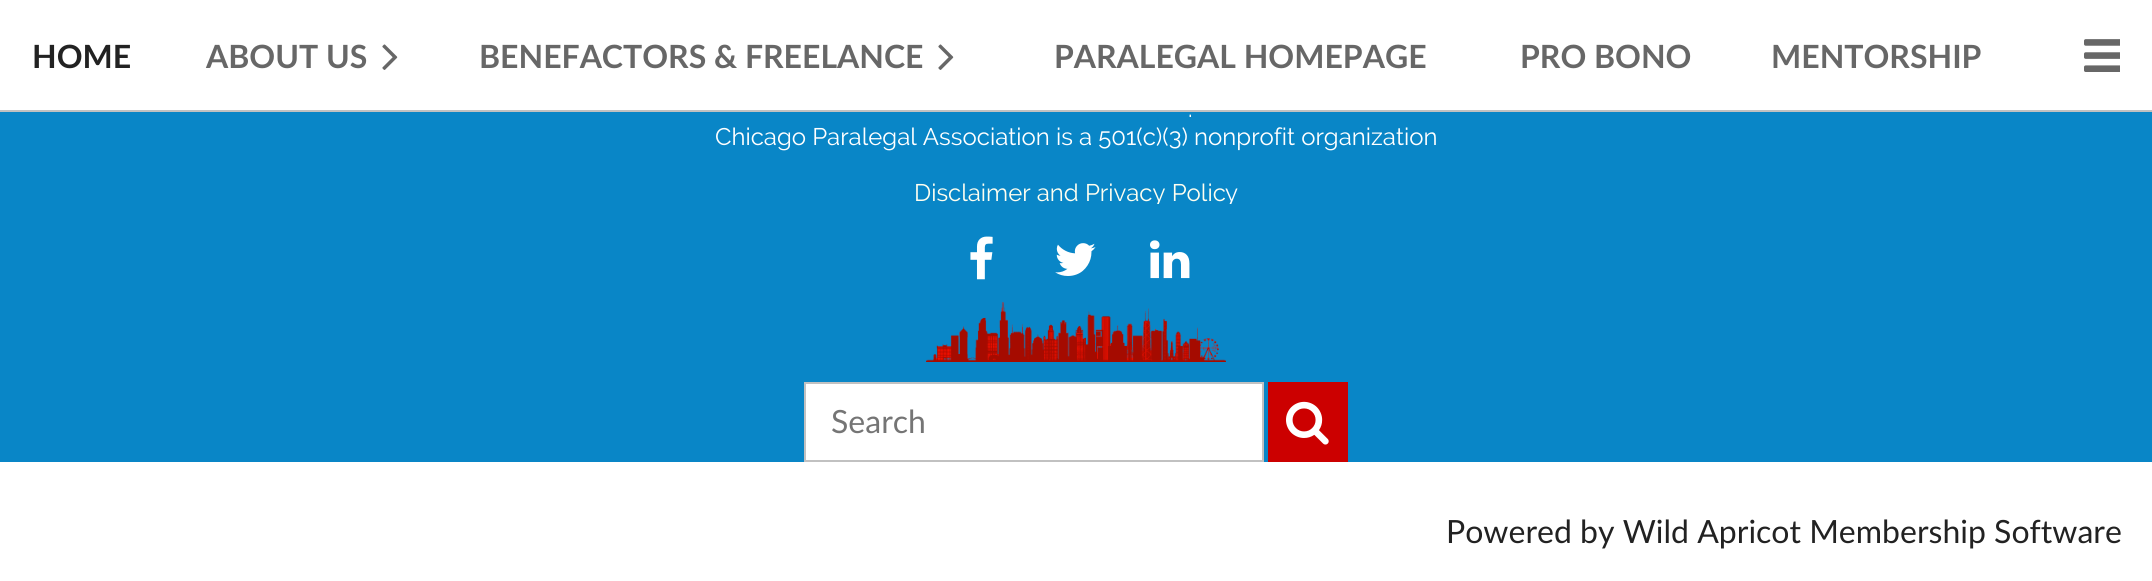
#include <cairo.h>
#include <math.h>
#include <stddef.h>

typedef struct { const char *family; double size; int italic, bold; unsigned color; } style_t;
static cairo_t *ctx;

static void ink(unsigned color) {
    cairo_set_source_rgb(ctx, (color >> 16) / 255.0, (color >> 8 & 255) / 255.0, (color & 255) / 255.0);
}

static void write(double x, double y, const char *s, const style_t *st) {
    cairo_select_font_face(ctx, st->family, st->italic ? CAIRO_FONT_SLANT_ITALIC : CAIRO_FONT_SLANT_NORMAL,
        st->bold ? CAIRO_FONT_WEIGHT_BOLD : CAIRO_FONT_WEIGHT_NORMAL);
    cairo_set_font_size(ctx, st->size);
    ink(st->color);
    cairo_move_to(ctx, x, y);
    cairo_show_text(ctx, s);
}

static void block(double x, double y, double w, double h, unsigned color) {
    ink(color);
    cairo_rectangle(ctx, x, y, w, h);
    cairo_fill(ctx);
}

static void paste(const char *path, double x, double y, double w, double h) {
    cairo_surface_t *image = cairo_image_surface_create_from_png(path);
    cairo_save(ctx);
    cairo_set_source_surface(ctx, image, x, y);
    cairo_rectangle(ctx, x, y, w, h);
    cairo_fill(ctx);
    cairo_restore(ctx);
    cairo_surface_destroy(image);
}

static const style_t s1 = {"Lato", 32, 0, 1, 0x222222};
static const style_t s2 = {"Lato", 32, 0, 1, 0x676767};
static const style_t s3 = {"Raleway", 24, 0, 0, 0xffffff};
static const style_t s4 = {"Raleway", 24, 0, 0, 0xfffff0};
static const style_t s5 = {"Lato", 32, 0, 0, 0x757575};
static const style_t s6 = {"Lato", 32, 0, 0, 0x222222};

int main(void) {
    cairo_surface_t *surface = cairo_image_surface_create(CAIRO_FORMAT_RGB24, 2152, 581);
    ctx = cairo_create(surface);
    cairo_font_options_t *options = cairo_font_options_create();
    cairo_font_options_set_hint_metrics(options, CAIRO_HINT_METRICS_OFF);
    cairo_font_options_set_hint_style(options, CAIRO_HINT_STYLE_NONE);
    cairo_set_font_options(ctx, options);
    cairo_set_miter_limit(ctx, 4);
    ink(0xffffff);
    cairo_paint(ctx);
    block(0, 110, 2152, 2, 0xc1c1c1);
    write(32, 68, "HOME", &s1);
    write(206, 68, "ABOUT US", &s2);
    paste("pic1.png", 382, 44, 16, 26);
    write(479, 68, "BENEFACTORS & FREELANCE", &s2);
    paste("pic1.png", 938, 44, 16, 26);
    write(1054, 68, "PARALEGAL HOMEPAGE", &s2);
    write(1520, 68, "PRO BONO", &s2);
    write(1771, 68, "MENTORSHIP", &s2);
    paste("pic2.png", 2084, 39, 36, 33);
    block(0, 112, 2152, 350, 0x0986c7);
    write(1188, 117, ".", &s3);
    write(715, 145, "Chicago Paralegal Association is a 501(c)(3) nonprofit organization", &s3);
    cairo_save(ctx);
    cairo_rectangle(ctx, 30, 0, 2092, 204);
    cairo_clip(ctx);
    write(914, 201, "Disclaimer and Privacy Polic", &s4);
    write(1225, 201, "y", &s3);
    cairo_restore(ctx);
    paste("pic3.png", 970, 236, 23, 44);
    paste("pic4.png", 1055, 243, 41, 33);
    paste("pic5.png", 1150, 240, 40, 39);
    paste("pic6.png", 926, 302, 300, 60);
    cairo_rectangle(ctx, 805, 383, 458, 78);
    cairo_fill_preserve(ctx);
    ink(0xc1c1c1);
    cairo_stroke(ctx);
    write(831, 433, "Search", &s5);
    block(1268, 382, 80, 80, 0xcc0000);
    paste("pic7.png", 1286, 401, 43, 44);
    write(1446, 543, "Powered by Wild Apricot Membership Software", &s6);
    cairo_surface_write_to_png(surface, "screenshot.png");
    cairo_font_options_destroy(options);
    cairo_destroy(ctx);
    cairo_surface_destroy(surface);
    return 0;
}
